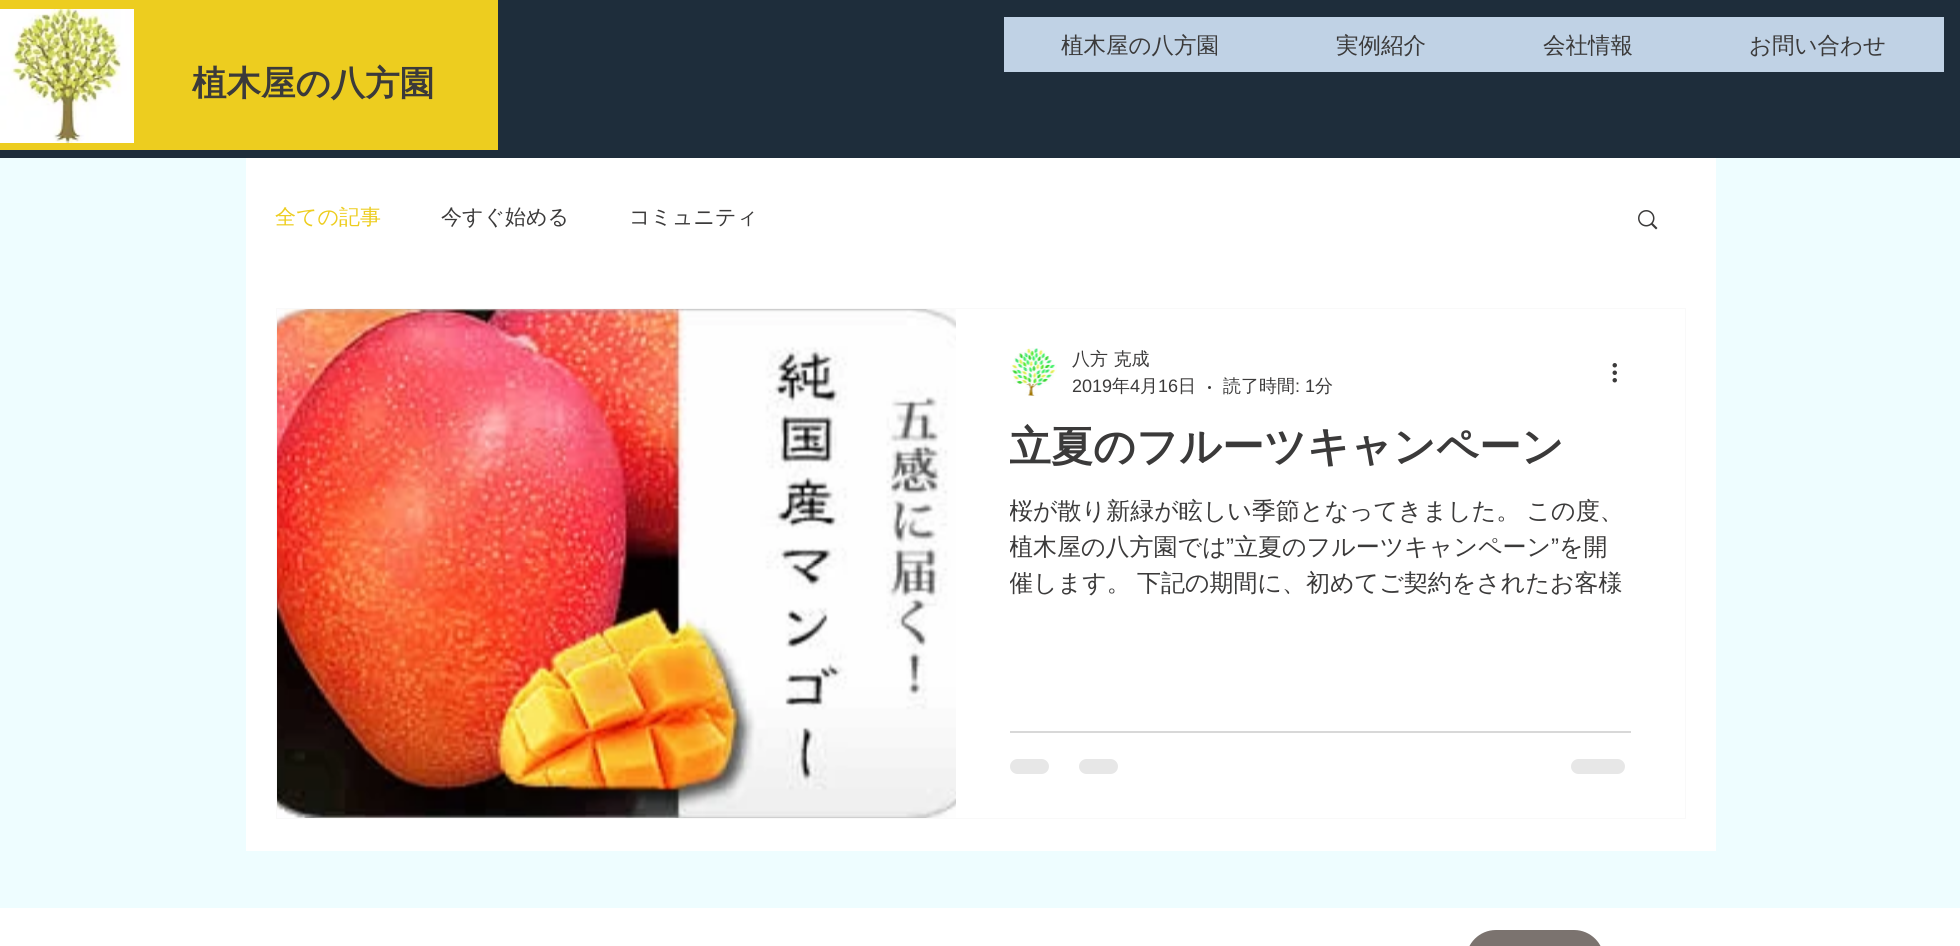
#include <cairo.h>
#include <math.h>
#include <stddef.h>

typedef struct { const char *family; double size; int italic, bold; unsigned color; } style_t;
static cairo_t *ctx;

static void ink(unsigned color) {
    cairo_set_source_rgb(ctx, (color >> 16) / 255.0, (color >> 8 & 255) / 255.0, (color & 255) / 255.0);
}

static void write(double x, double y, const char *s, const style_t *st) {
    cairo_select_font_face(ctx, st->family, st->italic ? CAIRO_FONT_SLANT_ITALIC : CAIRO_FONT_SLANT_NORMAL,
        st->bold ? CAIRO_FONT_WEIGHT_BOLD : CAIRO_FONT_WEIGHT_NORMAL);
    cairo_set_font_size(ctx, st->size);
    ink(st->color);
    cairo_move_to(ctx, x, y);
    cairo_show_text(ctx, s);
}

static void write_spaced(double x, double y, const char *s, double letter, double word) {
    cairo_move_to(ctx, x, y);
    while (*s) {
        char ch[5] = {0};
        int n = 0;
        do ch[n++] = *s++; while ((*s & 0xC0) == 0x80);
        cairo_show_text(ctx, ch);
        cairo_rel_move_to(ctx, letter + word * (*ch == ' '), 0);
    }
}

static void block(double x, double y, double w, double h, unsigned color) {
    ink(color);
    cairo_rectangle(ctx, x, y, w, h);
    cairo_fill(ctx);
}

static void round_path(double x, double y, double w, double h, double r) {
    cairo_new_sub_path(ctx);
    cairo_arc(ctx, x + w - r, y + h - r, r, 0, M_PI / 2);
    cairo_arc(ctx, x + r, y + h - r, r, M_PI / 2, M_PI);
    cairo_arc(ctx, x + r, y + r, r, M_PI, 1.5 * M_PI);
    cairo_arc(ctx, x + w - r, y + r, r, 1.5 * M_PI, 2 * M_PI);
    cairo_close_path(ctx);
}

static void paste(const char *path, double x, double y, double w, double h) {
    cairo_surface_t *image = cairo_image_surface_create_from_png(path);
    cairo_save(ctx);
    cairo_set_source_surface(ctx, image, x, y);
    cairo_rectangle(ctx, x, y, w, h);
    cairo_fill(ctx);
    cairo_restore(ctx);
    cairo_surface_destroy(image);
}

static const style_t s1 = {"WenQuanYi Zen Hei Medium", 22.5, 0, 0, 0x3b3a3a};
static const style_t s2 = {"WenQuanYi Zen Hei", 34.5, 0, 1, 0x3b3a3a};
static const style_t s3 = {"WenQuanYi Zen Hei Medium", 21, 0, 0, 0xedcd1f};
static const style_t s4 = {"WenQuanYi Zen Hei Medium", 21, 0, 0, 0x3b3a3a};
static const style_t s5 = {"WenQuanYi Zen Hei Medium", 18, 0, 0, 0x3b3a3a};
static const style_t s6 = {"Liberation Sans", 18, 0, 0, 0x3b3a3a};
static const style_t s7 = {"WenQuanYi Zen Hei", 42, 0, 1, 0x3b3a3a};
static const style_t s8 = {"WenQuanYi Zen Hei Medium", 24, 0, 0, 0x3b3a3a};
static const style_t s9 = {"Liberation Sans", 24, 0, 0, 0x3b3a3a};

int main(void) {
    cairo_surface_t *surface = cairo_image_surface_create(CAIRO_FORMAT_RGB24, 1960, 946);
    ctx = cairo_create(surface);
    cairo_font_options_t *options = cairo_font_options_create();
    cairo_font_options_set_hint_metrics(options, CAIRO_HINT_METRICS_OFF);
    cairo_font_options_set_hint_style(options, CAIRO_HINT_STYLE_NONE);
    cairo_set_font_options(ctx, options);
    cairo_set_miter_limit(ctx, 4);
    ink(0xeefdff);
    cairo_paint(ctx);
    block(0, 0, 1960, 158, 0x1e2d3b);
    block(1004, 17, 940, 55, 0xc0d2e5);
    write(1061, 53, "植木屋の八方園", &s1);
    write(1336, 53, "実例紹介", &s1);
    write(1543, 53, "会社情報", &s1);
    write(1749, 53, "お問い合わせ", &s1);
    block(0, 0, 498, 150, 0xedcd1f);
    paste("pic1.png", 0, 9, 134, 134);
    write(192, 95, "植木屋の八方園", &s2);
    block(246, 158, 1470, 693, 0xffffff);
    write(275, 224, "全ての記事", &s3);
    write(441, 224, "今すぐ始める", &s4);
    write(629, 224, "コミュニティ", &s4);
    paste("pic2.png", 1638, 210, 20, 20);
    cairo_rectangle(ctx, 277, 309, 1408, 509);
    ink(0xf9f9f9);
    cairo_stroke(ctx);
    paste("pic3.png", 277, 309, 679, 509);
    block(956, 309, 729, 509, 0xffffff);
    paste("pic4.png", 1010, 348, 47, 48);
    write(1072, 365, "八方 克成", &s5);
    write(1072, 392, "2019", &s6);
    write(1112, 392, "年", &s5);
    write(1130, 392, "4", &s6);
    write(1140, 392, "月", &s5);
    write(1158, 392, "16", &s6);
    write(1178, 392, "日", &s5);
    cairo_new_path(ctx);
    cairo_arc(ctx, 1209.5, 387.5, 1.5, 0, 2 * M_PI);
    cairo_fill(ctx);
    write(1223, 392, "読了時間", &s5);
    write(1295, 392, ": 1", &s6);
    write(1315, 392, "分", &s5);
    paste("pic5.png", 1612, 363, 5, 20);
    cairo_save(ctx);
    cairo_rectangle(ctx, 1010, 419, 621, 57);
    cairo_clip(ctx);
    write(1009, 461, "立夏のフルーツキャンペーン", &s7);
    cairo_restore(ctx);
    cairo_save(ctx);
    cairo_rectangle(ctx, 1010, 494, 621, 108);
    cairo_clip(ctx);
    cairo_set_font_size(ctx, 24);
    write_spaced(1009, 519, "桜が散り新緑が眩しい季節となってきました。 この度、", 0, -1);
    write(1009, 555, "植木屋の八方園では", &s8);
    cairo_restore(ctx);
    write(1226, 555, "”", &s9);
    write(1234, 555, "立夏のフルーツキャンペーン", &s8);
    write(1551, 555, "”", &s9);
    write(1559, 555, "を開", &s8);
    cairo_save(ctx);
    cairo_rectangle(ctx, 1010, 494, 621, 108);
    cairo_clip(ctx);
    write_spaced(1009, 591, "催します。 下記の期間に、初めてご契約をされたお客様", 0, -1);
    cairo_restore(ctx);
    block(1010, 731, 621, 2, 0xd8d8d8);
    ink(0xe7e7e7);
    round_path(1010, 759, 39, 15, 7.5);
    cairo_fill(ctx);
    round_path(1079, 759, 39, 15, 7.5);
    cairo_fill(ctx);
    round_path(1571, 759, 54, 15, 7.5);
    cairo_fill(ctx);
    block(0, 908, 1960, 38, 0xffffff);
    ink(0x7b736f);
    round_path(1466, 930, 138, 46, 30);
    cairo_fill(ctx);
    cairo_surface_write_to_png(surface, "screenshot.png");
    cairo_font_options_destroy(options);
    cairo_destroy(ctx);
    cairo_surface_destroy(surface);
    return 0;
}
